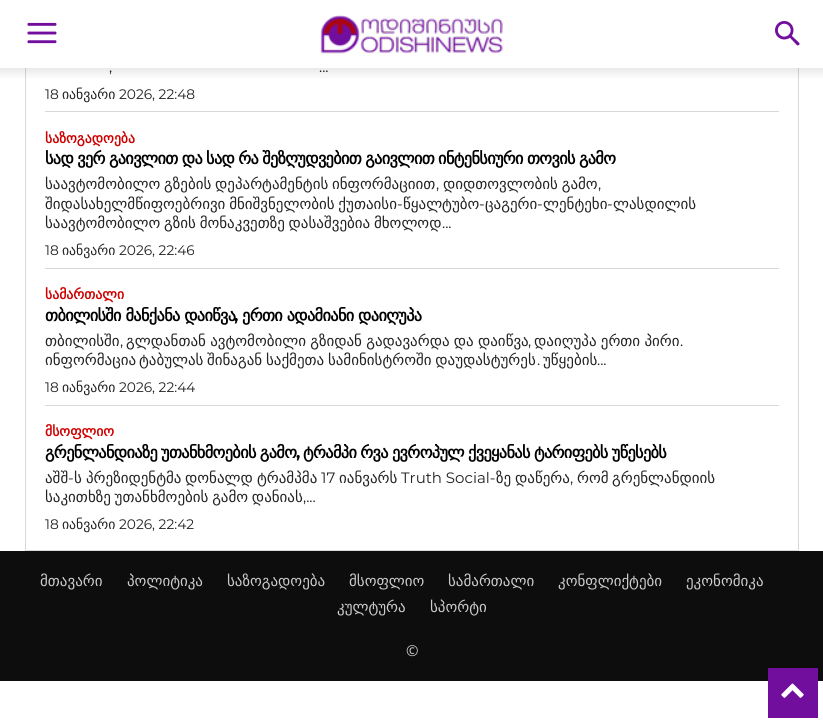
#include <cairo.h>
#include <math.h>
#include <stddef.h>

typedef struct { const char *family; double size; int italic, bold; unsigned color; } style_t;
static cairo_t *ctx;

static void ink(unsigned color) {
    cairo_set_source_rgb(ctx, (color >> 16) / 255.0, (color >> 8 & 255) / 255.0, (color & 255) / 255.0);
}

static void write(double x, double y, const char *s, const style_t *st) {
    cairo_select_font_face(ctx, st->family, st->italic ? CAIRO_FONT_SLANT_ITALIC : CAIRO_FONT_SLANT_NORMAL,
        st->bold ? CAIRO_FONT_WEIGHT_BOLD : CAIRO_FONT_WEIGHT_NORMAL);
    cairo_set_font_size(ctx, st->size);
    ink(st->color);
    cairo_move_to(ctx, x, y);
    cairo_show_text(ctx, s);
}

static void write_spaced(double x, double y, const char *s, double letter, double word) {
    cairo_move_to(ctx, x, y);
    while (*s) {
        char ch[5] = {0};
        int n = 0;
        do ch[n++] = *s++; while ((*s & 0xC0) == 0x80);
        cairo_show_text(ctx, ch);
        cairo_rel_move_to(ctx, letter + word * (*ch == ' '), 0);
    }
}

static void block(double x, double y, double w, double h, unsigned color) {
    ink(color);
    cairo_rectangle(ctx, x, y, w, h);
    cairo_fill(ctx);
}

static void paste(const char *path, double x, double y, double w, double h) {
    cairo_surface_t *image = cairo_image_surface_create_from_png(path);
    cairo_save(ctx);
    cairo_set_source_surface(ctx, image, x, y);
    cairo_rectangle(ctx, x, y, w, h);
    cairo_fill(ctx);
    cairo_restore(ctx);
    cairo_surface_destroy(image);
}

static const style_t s1 = {"Montserrat", 15, 0, 0, 0x222222};
static const style_t s2 = {"Montserrat", 13.75, 0, 0, 0x222222};
static const style_t s3 = {"DejaVu Sans", 13.75, 0, 0, 0x222222};
static const style_t s4 = {"DejaVu Sans", 13.75, 0, 1, 0xce0000};
static const style_t s5 = {"DejaVu Sans", 15, 0, 0, 0x222222};
static const style_t s6 = {"DejaVu Sans", 15, 0, 0, 0xcccccc};
static const style_t s7 = {"Open Sans", 15, 0, 0, 0xcccccc};

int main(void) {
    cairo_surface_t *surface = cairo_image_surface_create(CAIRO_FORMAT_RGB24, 823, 722);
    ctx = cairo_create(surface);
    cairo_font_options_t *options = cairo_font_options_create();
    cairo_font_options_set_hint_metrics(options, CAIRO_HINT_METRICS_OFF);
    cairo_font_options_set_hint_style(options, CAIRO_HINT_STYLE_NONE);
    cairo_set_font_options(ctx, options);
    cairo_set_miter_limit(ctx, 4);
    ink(0xffffff);
    cairo_paint(ctx);
    cairo_rectangle(ctx, 25.5, -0.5, 773, 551);
    ink(0xd8d8d8);
    cairo_set_line_width(ctx, 1);
    cairo_stroke(ctx);
    block(25, 0, 774, 68, 0xffffff);
    paste("pic1.png", 27, 22, 30, 22);
    paste("pic2.png", 320, 15, 183, 39);
    paste("pic3.png", 775, 21, 25, 25);
    write(109, 72, ",", &s1);
    write(319, 72, "...", &s1);
    paste("pic4.png", 0, 68, 823, 10);
    write(45, 99, "18", &s2);
    write(62, 99, "იანვარი", &s3);
    write(119, 99, "2026, 22:48", &s2);
    block(45, 111, 734, 1, 0xd8d8d8);
    write(45, 143, "საზოგადოება", &s4);
    cairo_set_font_size(ctx, 16.25);
    ink(0x000000);
    write_spaced(45, 164, "სად ვერ გაივლით და სად რა შეზღუდვებით გაივლით ინტენსიური თოვის გამო", -0.62, -0.5);
    cairo_select_font_face(ctx, "DejaVu Sans", CAIRO_FONT_SLANT_NORMAL, CAIRO_FONT_WEIGHT_NORMAL);
    cairo_set_font_size(ctx, 15);
    ink(0x222222);
    write_spaced(45, 189, "საავტომობილო გზების დეპარტამენტის ინფორმაციით", 0, -1);
    write(436, 189, ",", &s1);
    cairo_select_font_face(ctx, "DejaVu Sans", CAIRO_FONT_SLANT_NORMAL, CAIRO_FONT_WEIGHT_NORMAL);
    write_spaced(443, 189, "დიდთოვლობის გამო", 0, -1);
    write(598, 189, ",", &s1);
    cairo_select_font_face(ctx, "DejaVu Sans", CAIRO_FONT_SLANT_NORMAL, CAIRO_FONT_WEIGHT_NORMAL);
    write_spaced(45, 209, "შიდასახელმწიფოებრივი მნიშვნელობის ქუთაისი", 0, -1);
    write(397, 209, "-", &s1);
    write(403, 209, "წყალტუბო", &s5);
    write(479, 209, "-", &s1);
    write(485, 209, "ცაგერი", &s5);
    write(537, 209, "-", &s1);
    write(543, 209, "ლენტეხი", &s5);
    write(607, 209, "-", &s1);
    write(613, 209, "ლასდილის", &s5);
    write_spaced(45, 228, "საავტომობილო გზის მონაკვეთზე დასაშვებია მხოლოდ", 0, -1);
    write(442, 228, "...", &s1);
    write(45, 255, "18", &s2);
    write(62, 255, "იანვარი", &s3);
    write(119, 255, "2026, 22:46", &s2);
    block(45, 268, 734, 1, 0xd8d8d8);
    write(45, 299, "სამართალი", &s4);
    cairo_set_font_size(ctx, 16.25);
    ink(0x000000);
    write_spaced(45, 321, "თბილისში მანქანა დაიწვა", -0.62, 0);
    cairo_select_font_face(ctx, "Montserrat", CAIRO_FONT_SLANT_NORMAL, CAIRO_FONT_WEIGHT_BOLD);
    write_spaced(234, 321, ",", -0.62, 0);
    cairo_select_font_face(ctx, "DejaVu Sans", CAIRO_FONT_SLANT_NORMAL, CAIRO_FONT_WEIGHT_BOLD);
    write_spaced(242, 321, "ერთი ადამიანი დაიღუპა", -0.62, 0);
    write(45, 346, "თბილისში", &s5);
    write(120, 346, ",", &s1);
    cairo_select_font_face(ctx, "DejaVu Sans", CAIRO_FONT_SLANT_NORMAL, CAIRO_FONT_WEIGHT_NORMAL);
    write_spaced(126, 346, "გლდანთან ავტომობილი გზიდან გადავარდა და დაიწვა", 0, -0.5);
    write(528, 346, ",", &s1);
    cairo_select_font_face(ctx, "DejaVu Sans", CAIRO_FONT_SLANT_NORMAL, CAIRO_FONT_WEIGHT_NORMAL);
    write_spaced(534, 346, "დაიღუპა ერთი პირი", 0, -0.5);
    write(680, 346, ".", &s1);
    write(45, 365, "ინფორმაცია", &s5);
    write(139, 365, "ტაბულას", &s5);
    write_spaced(207, 365, "შინაგან საქმეთა სამინისტროში დაუდასტურეს", 0, -1);
    write(537, 365, ".", &s1);
    write(543, 365, "უწყების", &s5);
    write(597, 365, "...", &s1);
    write(45, 392, "18", &s2);
    write(62, 392, "იანვარი", &s3);
    write(119, 392, "2026, 22:44", &s2);
    block(45, 405, 734, 1, 0xd8d8d8);
    write(45, 436, "მსოფლიო", &s4);
    cairo_set_font_size(ctx, 16.25);
    ink(0x000000);
    write_spaced(45, 458, "გრენლანდიაზე უთანხმოების გამო", -0.62, -0.5);
    cairo_select_font_face(ctx, "Montserrat", CAIRO_FONT_SLANT_NORMAL, CAIRO_FONT_WEIGHT_BOLD);
    write_spaced(296, 458, ",", -0.62, 0);
    cairo_select_font_face(ctx, "DejaVu Sans", CAIRO_FONT_SLANT_NORMAL, CAIRO_FONT_WEIGHT_BOLD);
    write_spaced(303, 458, "ტრამპი რვა ევროპულ ქვეყანას ტარიფებს უწესებს", -0.62, -0.5);
    write(45, 483, "აშშ", &s5);
    write(68, 483, "-", &s1);
    write(74, 483, "ს", &s5);
    write(86, 483, "პრეზიდენტმა", &s5);
    write(185, 483, "დონალდ", &s5);
    write(257, 483, "ტრამპმა", &s5);
    write(321, 483, "17", &s1);
    write(339, 483, "იანვარს", &s5);
    write(401, 483, "Truth Social-", &s1);
    write(496, 483, "ზე", &s5);
    write(515, 483, "დაწერა", &s5);
    write(577, 483, "რომ", &s5);
    write(612, 483, "გრენლანდიის", &s5);
    write(570, 483, ",", &s1);
    cairo_select_font_face(ctx, "DejaVu Sans", CAIRO_FONT_SLANT_NORMAL, CAIRO_FONT_WEIGHT_NORMAL);
    write_spaced(45, 502, "საკითხზე უთანხმოების გამო დანიას", 0, -1);
    write(303, 502, ",...", &s1);
    write(45, 529, "18", &s2);
    write(62, 529, "იანვარი", &s3);
    write(119, 529, "2026, 22:42", &s2);
    block(0, 551, 823, 130, 0x0d0d0d);
    write(40, 586, "მთავარი", &s6);
    write(127, 586, "პოლიტიკა", &s6);
    write(227, 586, "საზოგადოება", &s6);
    write(349, 586, "მსოფლიო", &s6);
    write(448, 586, "სამართალი", &s6);
    write(558, 586, "კონფლიქტები", &s6);
    write(686, 586, "ეკონომიკა", &s6);
    write(337, 612, "კულტურა", &s6);
    write(430, 612, "სპორტი", &s6);
    write(406, 656, "©", &s7);
    block(768, 668, 50, 50, 0x720e9e);
    paste("pic5.png", 781, 683, 23, 15);
    cairo_surface_write_to_png(surface, "screenshot.png");
    cairo_font_options_destroy(options);
    cairo_destroy(ctx);
    cairo_surface_destroy(surface);
    return 0;
}
